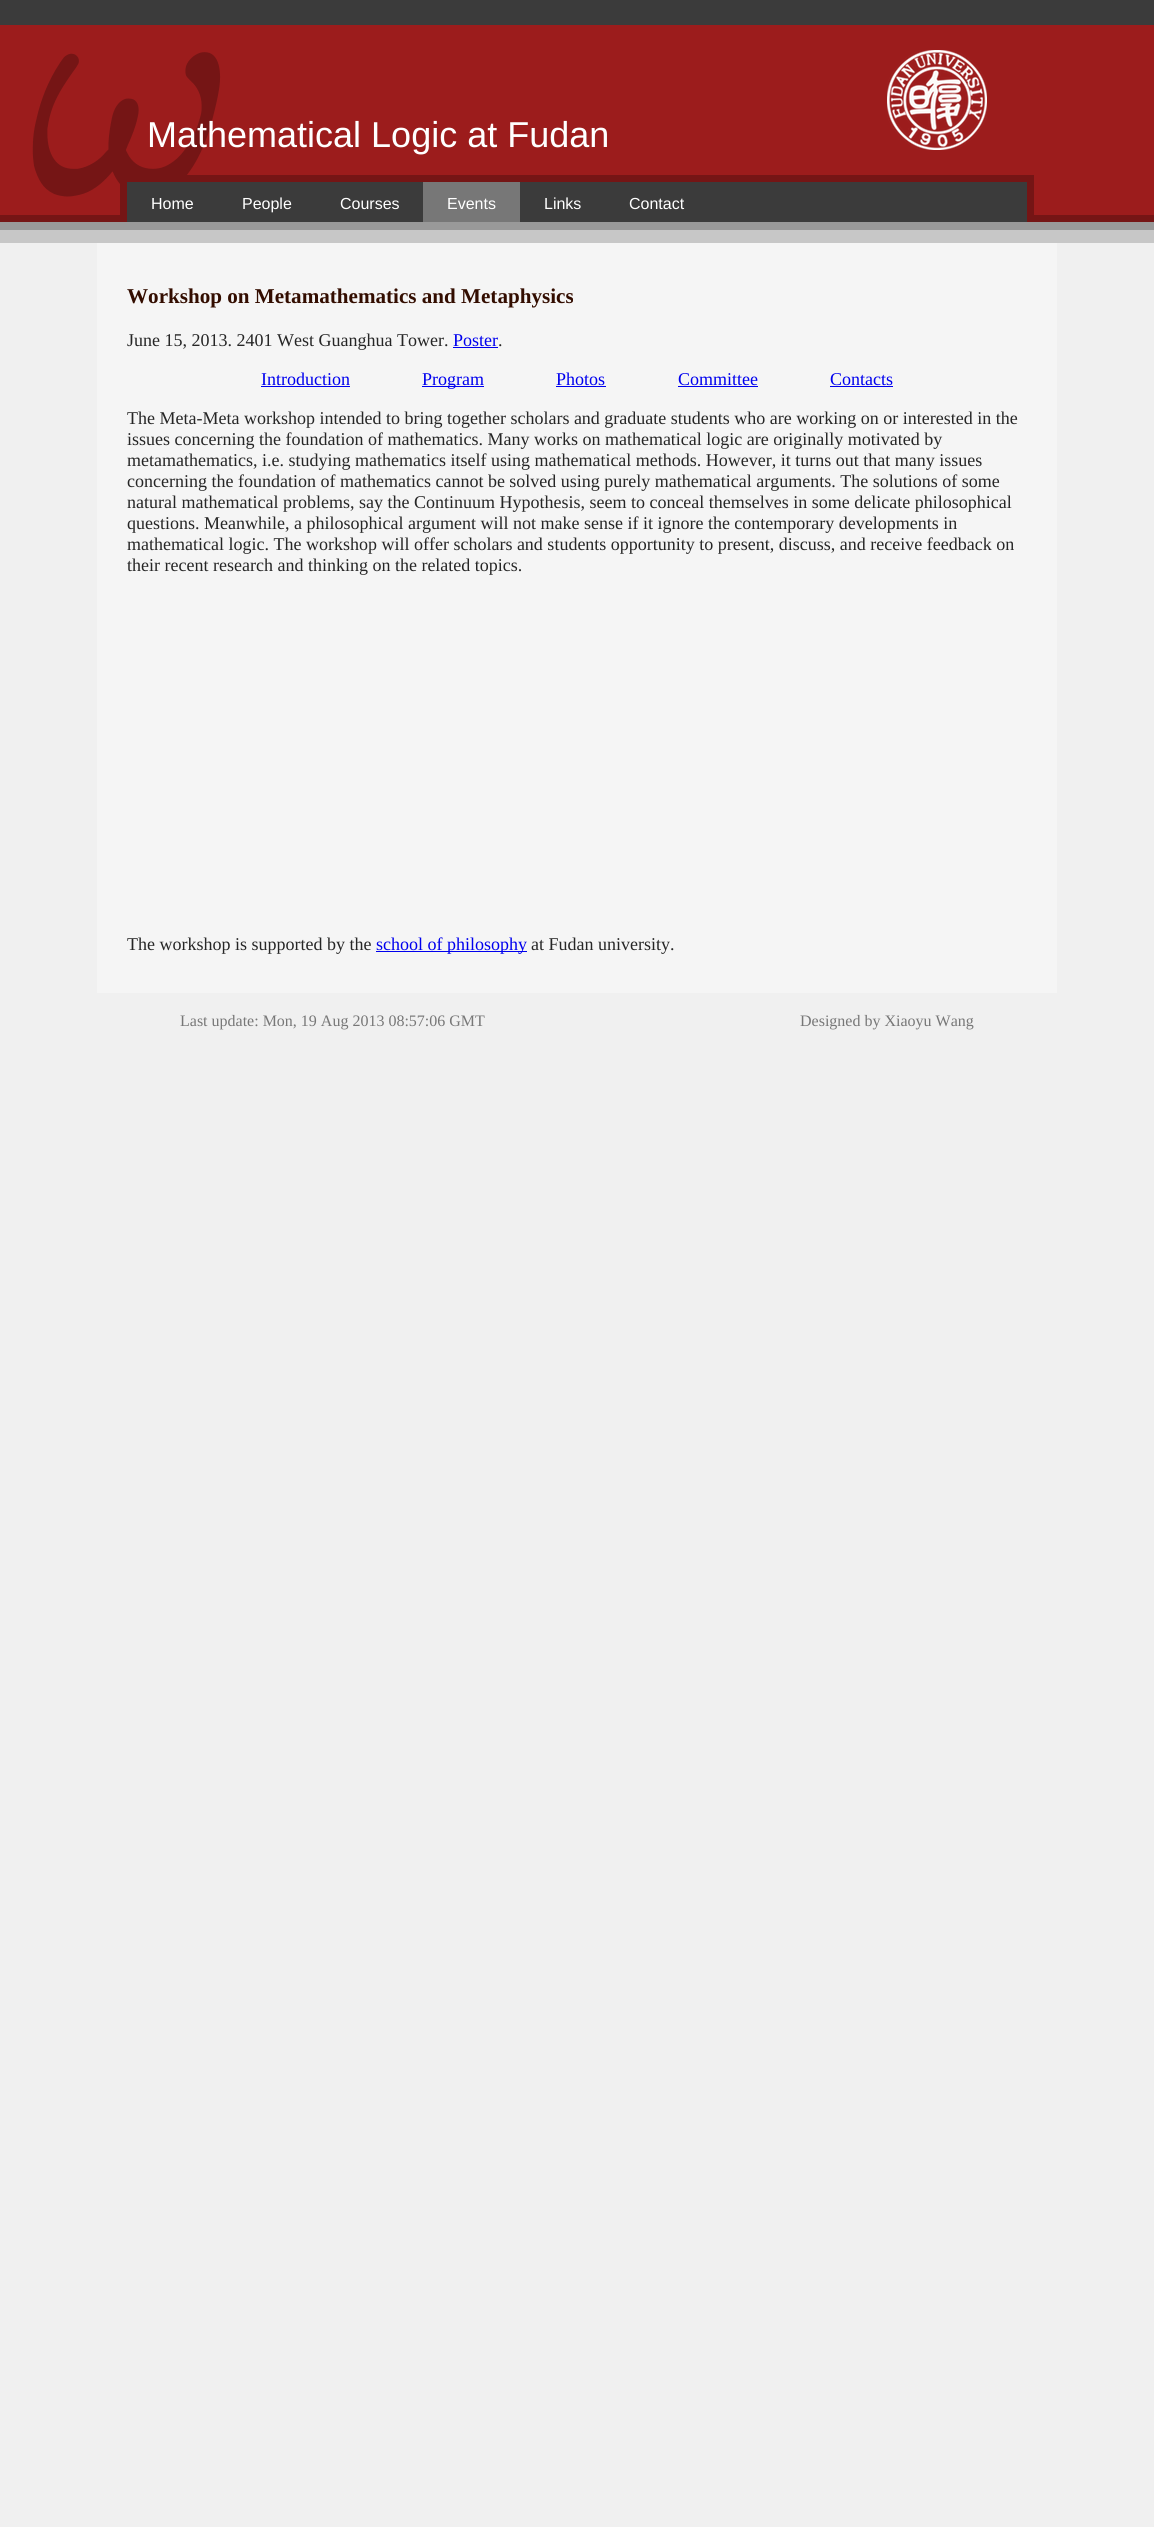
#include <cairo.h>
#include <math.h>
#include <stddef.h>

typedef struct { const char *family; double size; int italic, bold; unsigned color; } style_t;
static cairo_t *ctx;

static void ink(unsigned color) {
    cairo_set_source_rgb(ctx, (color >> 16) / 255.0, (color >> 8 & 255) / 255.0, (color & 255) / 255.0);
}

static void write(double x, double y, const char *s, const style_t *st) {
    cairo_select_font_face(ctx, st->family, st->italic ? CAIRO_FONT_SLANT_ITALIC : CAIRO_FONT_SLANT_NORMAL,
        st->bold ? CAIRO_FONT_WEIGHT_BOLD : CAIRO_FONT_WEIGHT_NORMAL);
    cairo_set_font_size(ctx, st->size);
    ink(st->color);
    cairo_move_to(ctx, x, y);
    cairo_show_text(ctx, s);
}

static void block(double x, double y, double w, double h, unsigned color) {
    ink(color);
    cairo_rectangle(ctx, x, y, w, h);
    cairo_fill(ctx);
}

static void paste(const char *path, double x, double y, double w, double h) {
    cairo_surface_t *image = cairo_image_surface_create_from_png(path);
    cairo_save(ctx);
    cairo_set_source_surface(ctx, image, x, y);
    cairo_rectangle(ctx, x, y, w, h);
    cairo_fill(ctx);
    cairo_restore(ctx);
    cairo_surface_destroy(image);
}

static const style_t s1 = {"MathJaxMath", 318, 1, 0, 0x751515};
static const style_t s2 = {"Liberation Sans", 36, 0, 0, 0xffffff};
static const style_t s3 = {"Liberation Sans", 16, 0, 0, 0xffffff};
static const style_t s4 = {"Liberation Serif", 21.1, 0, 1, 0x330d00};
static const style_t s5 = {"Liberation Serif", 18, 0, 0, 0x262626};
static const style_t s6 = {"Liberation Serif", 18, 0, 0, 0x0000ee};
static const style_t s7 = {"Liberation Serif", 16, 0, 0, 0x777777};

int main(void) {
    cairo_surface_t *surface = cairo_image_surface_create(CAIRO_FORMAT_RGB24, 1154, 2527);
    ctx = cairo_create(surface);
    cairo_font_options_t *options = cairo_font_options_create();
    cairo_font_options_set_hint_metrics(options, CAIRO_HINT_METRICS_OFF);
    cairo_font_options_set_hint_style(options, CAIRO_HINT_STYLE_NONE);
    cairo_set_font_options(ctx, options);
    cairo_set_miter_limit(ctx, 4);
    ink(0xf0f0f0);
    cairo_paint(ctx);
    block(0, 25, 1154, 190, 0x9c1c1c);
    block(0, 0, 1154, 25, 0x3b3b3b);
    write(28, 193, "ω", &s1);
    write(147, 147, "Mathematical Logic at Fudan", &s2);
    paste("pic1.png", 887, 50, 100, 100);
    block(0, 215, 1154, 7, 0x751515);
    block(127, 182, 900, 40, 0x3b3b3b);
    block(180, 175, 854, 7, 0x751515);
    block(1027, 175, 7, 47, 0x751515);
    block(120, 184, 7, 38, 0x751515);
    write(151, 209, "Home", &s3);
    write(242, 209, "People", &s3);
    write(340, 209, "Courses", &s3);
    block(423, 182, 97, 40, 0x777777);
    write(447, 209, "Events", &s3);
    write(544, 209, "Links", &s3);
    write(629, 209, "Contact", &s3);
    block(0, 222, 1154, 8, 0x999999);
    block(0, 230, 1154, 13, 0xc7c7c7);
    block(97, 243, 960, 750, 0xf5f5f5);
    write(127, 303, "Workshop on Metamathematics and Metaphysics", &s4);
    write(127, 346, "June 15, 2013. 2401 West Guanghua Tower.", &s5);
    write(453, 346, "Poster", &s6);
    block(453, 347, 45, 1, 0x0000ee);
    write(498, 346, ".", &s5);
    write(261, 385, "Introduction", &s6);
    block(261, 386, 89, 1, 0x0000ee);
    block(422, 386, 62, 1, 0x0000ee);
    write(422, 385, "Program", &s6);
    write(556, 385, "Photos", &s6);
    block(556, 386, 50, 1, 0x0000ee);
    write(678, 385, "Committee", &s6);
    block(678, 386, 80, 1, 0x0000ee);
    write(830, 385, "Contacts", &s6);
    block(830, 386, 63, 1, 0x0000ee);
    write(127, 424, "The Meta-Meta workshop intended to bring together scholars and graduate students who are working on or interested in the", &s5);
    write(127, 445, "issues concerning the foundation of mathematics. Many works on mathematical logic are originally motivated by", &s5);
    write(127, 466, "metamathematics, i.e. studying mathematics itself using mathematical methods. However, it turns out that many issues", &s5);
    write(127, 487, "concerning the foundation of mathematics cannot be solved using purely mathematical arguments. The solutions of some", &s5);
    write(127, 508, "natural mathematical problems, say the Continuum Hypothesis, seem to conceal themselves in some delicate philosophical", &s5);
    write(127, 529, "questions. Meanwhile, a philosophical argument will not make sense if it ignore the contemporary developments in", &s5);
    write(127, 550, "mathematical logic. The workshop will offer scholars and students opportunity to present, discuss, and receive feedback on", &s5);
    write(127, 571, "their recent research and thinking on the related topics.", &s5);
    write(127, 950, "The workshop is supported by the", &s5);
    block(376, 951, 151, 1, 0x0000ee);
    write(376, 950, "school of philosophy", &s6);
    write(531, 950, "at Fudan university.", &s5);
    write(180, 1026, "Last update: Mon, 19 Aug 2013 08:57:06 GMT", &s7);
    write(800, 1026, "Designed by Xiaoyu Wang", &s7);
    cairo_surface_write_to_png(surface, "screenshot.png");
    cairo_font_options_destroy(options);
    cairo_destroy(ctx);
    cairo_surface_destroy(surface);
    return 0;
}
